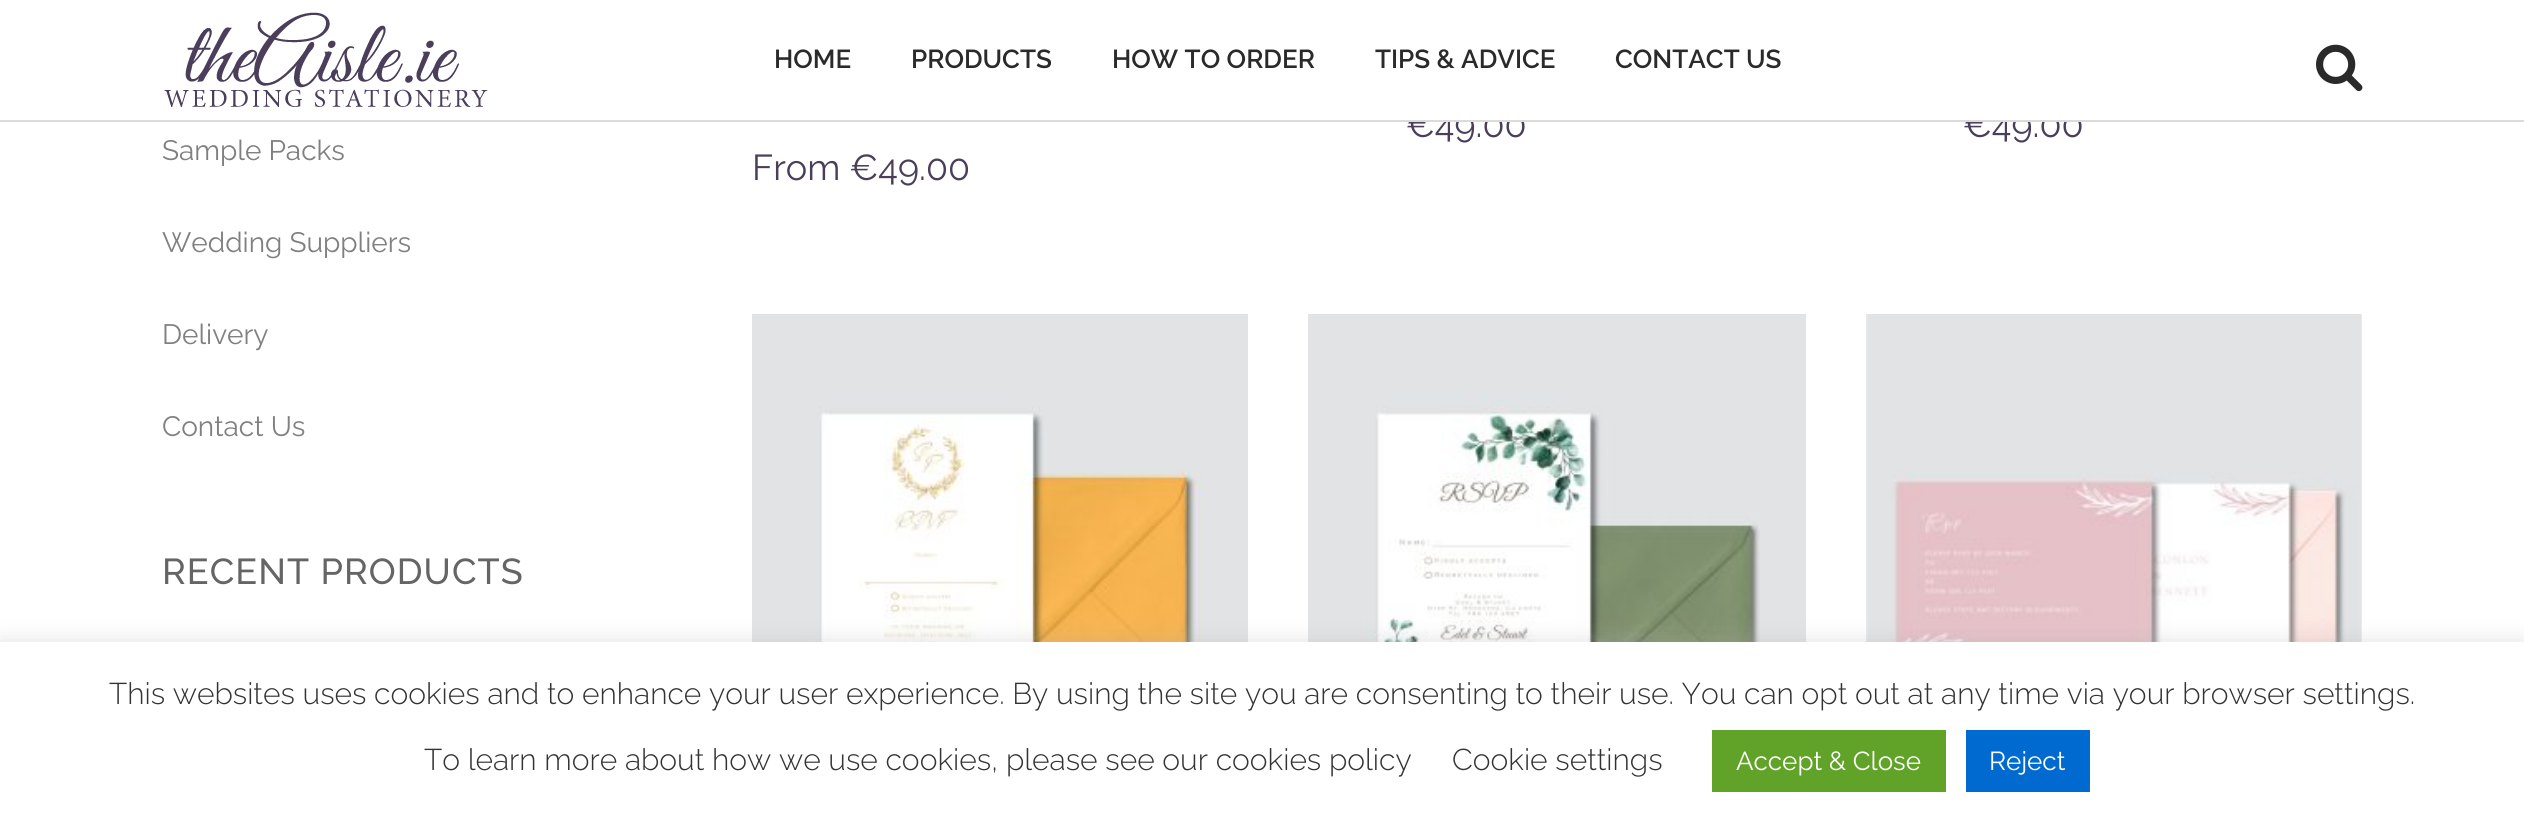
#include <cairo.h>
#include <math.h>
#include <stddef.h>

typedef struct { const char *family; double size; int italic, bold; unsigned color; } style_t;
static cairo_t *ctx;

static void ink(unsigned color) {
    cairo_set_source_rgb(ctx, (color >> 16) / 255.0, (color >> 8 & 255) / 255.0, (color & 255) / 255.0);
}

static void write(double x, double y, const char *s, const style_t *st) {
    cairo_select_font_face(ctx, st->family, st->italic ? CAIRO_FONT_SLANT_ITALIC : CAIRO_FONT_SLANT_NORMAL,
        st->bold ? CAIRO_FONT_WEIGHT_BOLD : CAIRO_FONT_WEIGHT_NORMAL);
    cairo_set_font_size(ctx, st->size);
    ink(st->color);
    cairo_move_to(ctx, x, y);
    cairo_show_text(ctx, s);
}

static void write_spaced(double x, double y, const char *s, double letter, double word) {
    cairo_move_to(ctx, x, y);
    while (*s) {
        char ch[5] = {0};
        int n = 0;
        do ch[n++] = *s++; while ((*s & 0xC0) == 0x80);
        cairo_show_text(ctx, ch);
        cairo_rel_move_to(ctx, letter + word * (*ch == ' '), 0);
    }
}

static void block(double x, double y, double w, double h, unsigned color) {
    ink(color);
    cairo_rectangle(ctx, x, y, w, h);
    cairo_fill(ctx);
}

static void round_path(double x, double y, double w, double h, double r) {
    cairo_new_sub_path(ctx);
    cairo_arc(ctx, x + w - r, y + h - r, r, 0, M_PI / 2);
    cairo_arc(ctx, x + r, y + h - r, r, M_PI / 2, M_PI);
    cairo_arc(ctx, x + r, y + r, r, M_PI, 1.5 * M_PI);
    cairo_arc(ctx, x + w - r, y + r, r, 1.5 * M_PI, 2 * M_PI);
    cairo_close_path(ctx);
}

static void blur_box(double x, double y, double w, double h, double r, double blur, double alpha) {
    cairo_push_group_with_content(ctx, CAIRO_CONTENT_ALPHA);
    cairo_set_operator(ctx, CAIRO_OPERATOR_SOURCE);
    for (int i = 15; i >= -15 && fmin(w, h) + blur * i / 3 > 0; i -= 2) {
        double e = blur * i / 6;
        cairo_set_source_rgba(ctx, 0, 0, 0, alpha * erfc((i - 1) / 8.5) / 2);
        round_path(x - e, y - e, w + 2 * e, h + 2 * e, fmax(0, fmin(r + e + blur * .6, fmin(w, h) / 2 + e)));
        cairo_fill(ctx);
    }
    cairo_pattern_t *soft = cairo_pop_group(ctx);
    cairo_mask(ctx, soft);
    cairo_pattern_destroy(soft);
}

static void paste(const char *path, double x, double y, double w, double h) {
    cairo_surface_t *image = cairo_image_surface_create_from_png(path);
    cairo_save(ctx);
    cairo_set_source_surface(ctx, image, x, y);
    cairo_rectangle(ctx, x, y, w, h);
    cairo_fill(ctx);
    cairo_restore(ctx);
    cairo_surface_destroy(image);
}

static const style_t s1 = {"Raleway", 36, 0, 0, 0x4a3e5a};
static const style_t s2 = {"Raleway SemiBold", 26, 0, 0, 0x2a2a2a};
static const style_t s3 = {"Raleway", 28, 0, 0, 0x808080};
static const style_t s4 = {"Raleway Light", 30, 0, 0, 0x333333};
static const style_t s5 = {"Raleway", 26, 0, 0, 0xffffff};

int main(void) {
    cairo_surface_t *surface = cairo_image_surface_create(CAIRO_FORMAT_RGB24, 2524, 825);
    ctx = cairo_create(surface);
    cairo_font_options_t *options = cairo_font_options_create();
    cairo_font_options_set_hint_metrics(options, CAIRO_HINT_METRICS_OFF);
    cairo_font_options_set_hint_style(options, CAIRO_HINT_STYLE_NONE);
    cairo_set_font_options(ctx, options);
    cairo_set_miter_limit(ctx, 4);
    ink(0xffffff);
    cairo_paint(ctx);
    write(1406, 137, "€49.00", &s1);
    write(1963, 137, "€49.00", &s1);
    block(0, 120, 2524, 2, 0xdbdbdb);
    block(1411, 111, 669, 9, 0xffffff);
    paste("pic1.png", 164, 12, 324, 95);
    write(774, 68, "HOME", &s2);
    write(911, 68, "PRODUCTS", &s2);
    write(1112, 68, "HOW TO ORDER", &s2);
    write(1375, 68, "TIPS & ADVICE", &s2);
    write(1615, 68, "CONTACT US", &s2);
    paste("pic2.png", 2316, 44, 47, 48);
    write(162, 160, "Sample Packs", &s3);
    write(162, 252, "Wedding Suppliers", &s3);
    write(162, 344, "Delivery", &s3);
    write(162, 436, "Contact Us", &s3);
    cairo_select_font_face(ctx, "Raleway Medium", CAIRO_FONT_SLANT_NORMAL, CAIRO_FONT_WEIGHT_NORMAL);
    cairo_set_font_size(ctx, 36);
    ink(0x656565);
    write_spaced(162, 584, "RECENT PRODUCTS", 1.1, 0);
    write(752, 180, "From €49.00", &s1);
    paste("pic3.png", 752, 314, 496, 328);
    paste("pic4.png", 1308, 314, 498, 328);
    paste("pic5.png", 1866, 314, 496, 328);
    ink(0xacabab);
    blur_box(0, 640, 2524, 184, 0, 10, 0.3);
    block(0, 642, 2524, 183, 0xffffff);
    write(109, 704, "This websites uses cookies and to enhance your user experience. By using the site you are consenting to their use. You can opt out at any time via your browser settings.", &s4);
    write(424, 770, "To learn more about how we use cookies, please see our cookies policy", &s4);
    write(1452, 770, "Cookie settings", &s4);
    block(1712, 730, 234, 62, 0x61a229);
    write(1736, 770, "Accept & Close", &s5);
    block(1966, 730, 124, 62, 0x006ad0);
    write(1989, 770, "Reject", &s5);
    cairo_surface_write_to_png(surface, "screenshot.png");
    cairo_font_options_destroy(options);
    cairo_destroy(ctx);
    cairo_surface_destroy(surface);
    return 0;
}
